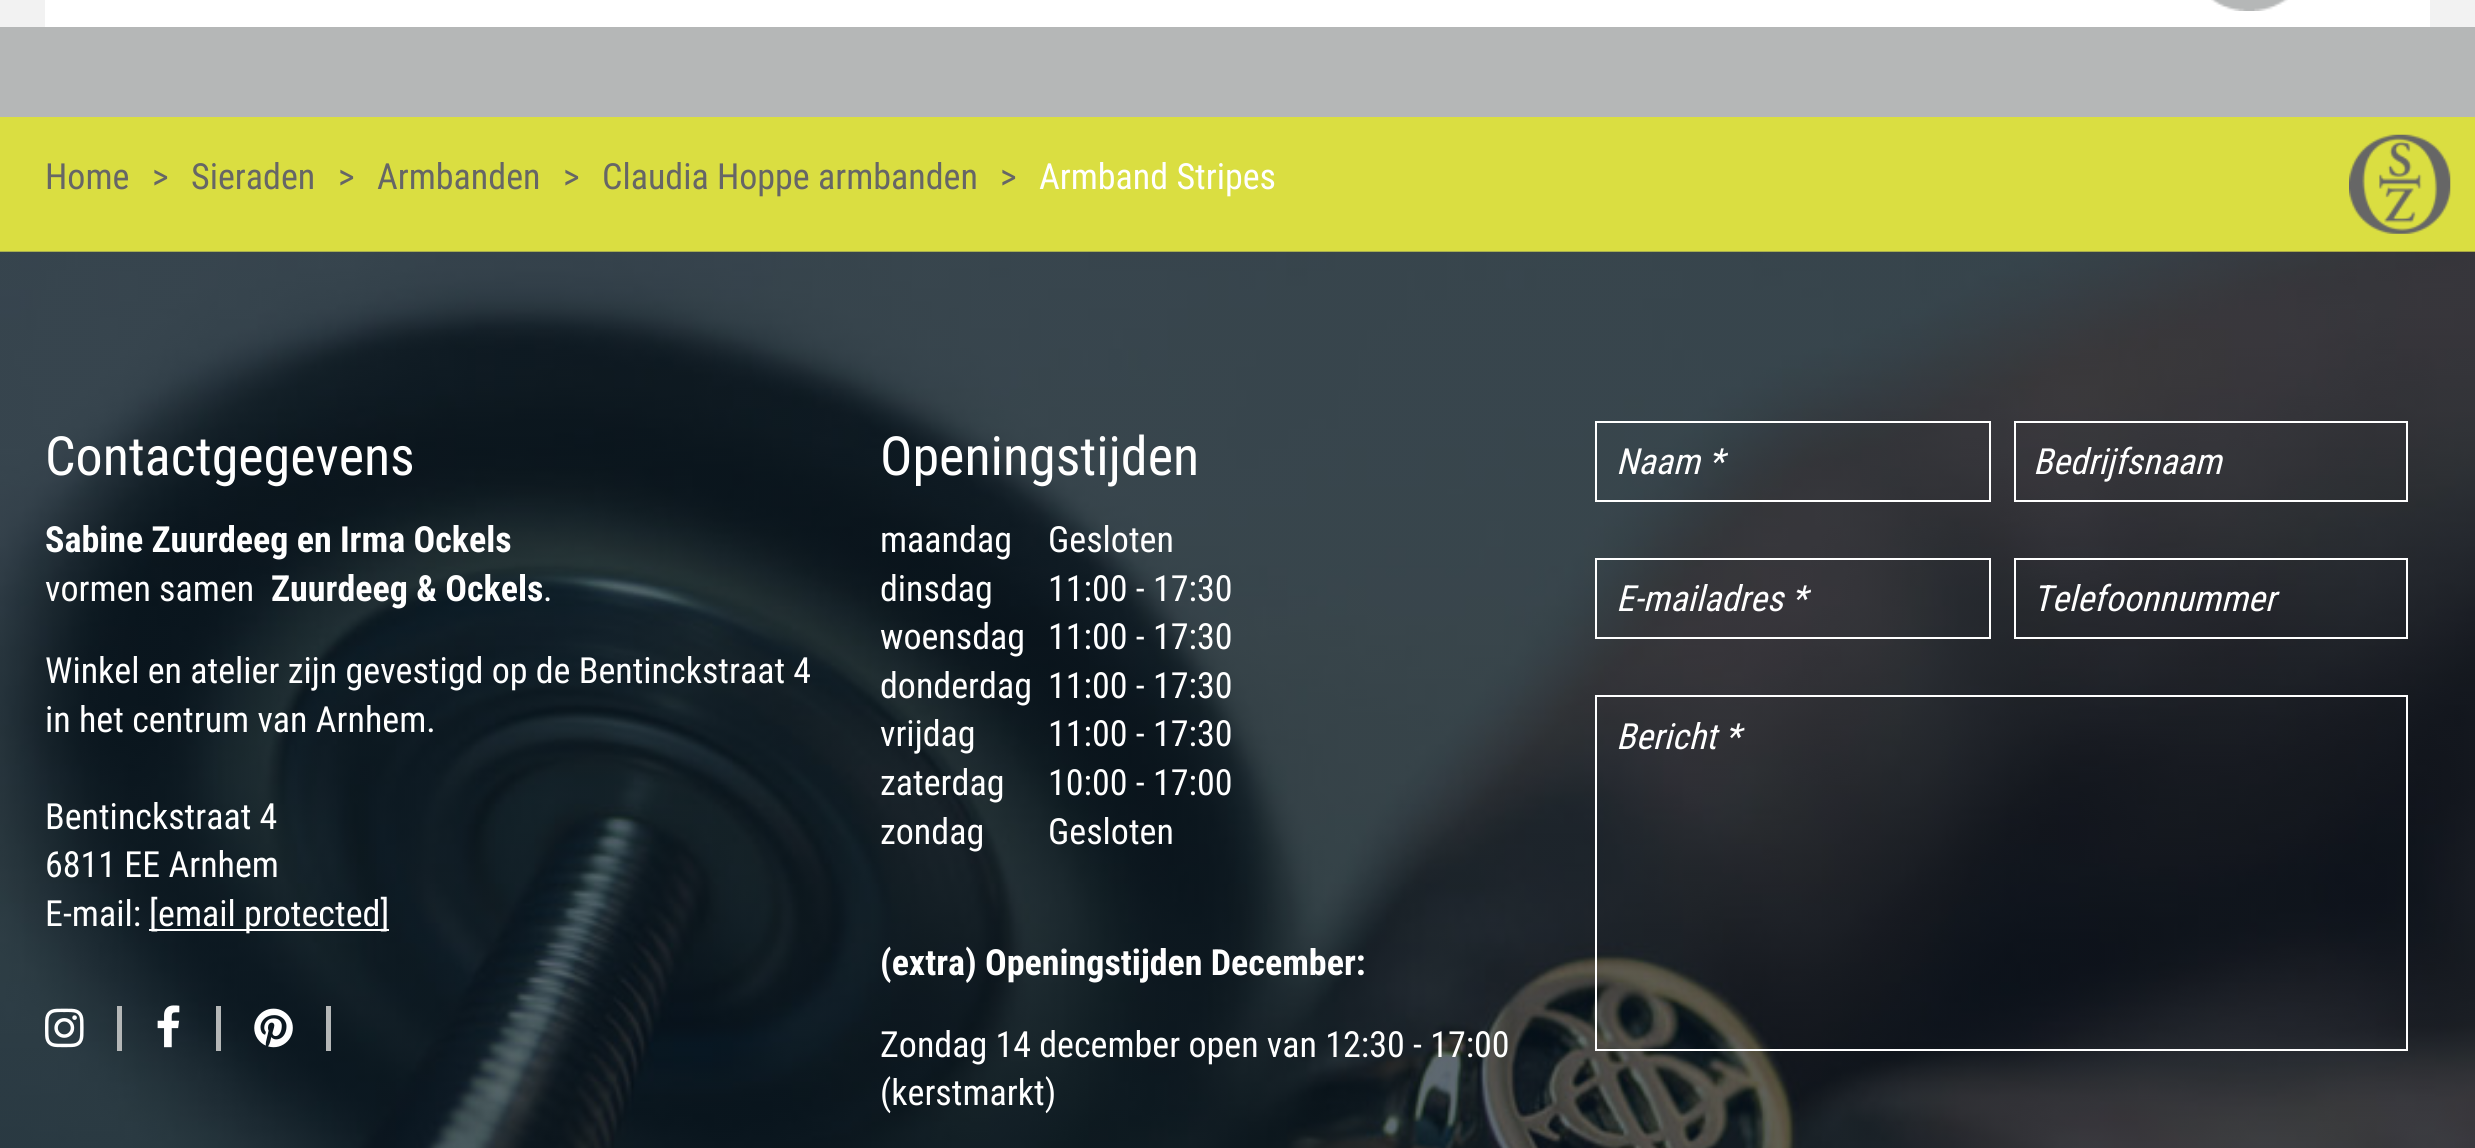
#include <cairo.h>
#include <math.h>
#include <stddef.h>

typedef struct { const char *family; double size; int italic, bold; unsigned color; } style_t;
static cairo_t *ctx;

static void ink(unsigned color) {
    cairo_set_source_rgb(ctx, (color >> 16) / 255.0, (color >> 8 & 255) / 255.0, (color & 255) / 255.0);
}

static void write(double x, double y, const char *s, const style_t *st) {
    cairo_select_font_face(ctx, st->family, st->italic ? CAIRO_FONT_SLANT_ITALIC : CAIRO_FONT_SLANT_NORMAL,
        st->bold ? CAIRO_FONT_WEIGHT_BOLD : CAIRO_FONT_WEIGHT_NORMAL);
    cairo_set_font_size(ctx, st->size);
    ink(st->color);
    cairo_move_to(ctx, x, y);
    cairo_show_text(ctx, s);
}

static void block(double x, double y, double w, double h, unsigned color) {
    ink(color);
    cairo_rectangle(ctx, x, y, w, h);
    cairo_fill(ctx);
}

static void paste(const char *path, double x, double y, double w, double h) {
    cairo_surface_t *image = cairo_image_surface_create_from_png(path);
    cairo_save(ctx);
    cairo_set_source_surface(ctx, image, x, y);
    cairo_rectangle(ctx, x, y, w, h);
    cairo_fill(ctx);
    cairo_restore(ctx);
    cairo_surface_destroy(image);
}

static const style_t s1 = {"Roboto Condensed", 36, 0, 0, 0x666666};
static const style_t s2 = {"Roboto Condensed", 36, 0, 0, 0xffffff};
static const style_t s3 = {"Roboto Condensed", 54, 0, 0, 0xffffff};
static const style_t s4 = {"Roboto Condensed", 36, 0, 1, 0xffffff};
static const style_t s5 = {"Roboto Condensed", 36, 1, 0, 0xffffff};

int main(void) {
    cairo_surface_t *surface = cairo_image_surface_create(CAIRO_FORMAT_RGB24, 2475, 1148);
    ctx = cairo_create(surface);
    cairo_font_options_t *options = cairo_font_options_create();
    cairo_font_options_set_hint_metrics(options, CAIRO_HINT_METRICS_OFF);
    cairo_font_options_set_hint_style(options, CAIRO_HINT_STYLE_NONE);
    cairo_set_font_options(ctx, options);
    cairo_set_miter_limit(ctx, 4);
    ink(0xf2f2f2);
    cairo_paint(ctx);
    block(45, 0, 2385, 27, 0xffffff);
    paste("pic1.png", 2211, 0, 77, 11);
    block(0, 27, 2475, 90, 0xb5b7b7);
    block(0, 117, 2475, 135, 0xdade41);
    paste("pic2.png", 2349, 134, 102, 100);
    write(45, 189, "Home", &s1);
    write(152, 189, ">", &s1);
    write(191, 189, "Sieraden", &s1);
    write(338, 189, ">", &s1);
    write(377, 189, "Armbanden", &s1);
    write(563, 189, ">", &s1);
    write(602, 189, "Claudia Hoppe armbanden", &s1);
    write(1000, 189, ">", &s1);
    write(1039, 189, "Armband Stripes", &s2);
    paste("pic3.png", 0, 251, 2475, 897);
    write(45, 475, "Contactgegevens", &s3);
    write(45, 552, "Sabine Zuurdeeg en Irma Ockels", &s4);
    write(45, 601, "vormen samen", &s2);
    write(271, 601, "Zuurdeeg & Ockels", &s4);
    write(543, 601, ".", &s2);
    write(45, 683, "Winkel en atelier zijn gevestigd op de Bentinckstraat 4", &s2);
    write(45, 732, "in het centrum van Arnhem.", &s2);
    write(45, 829, "Bentinckstraat 4", &s2);
    write(45, 877, "6811 EE Arnhem", &s2);
    write(45, 926, "E-mail:", &s2);
    block(149, 929, 240, 2, 0xffffff);
    write(149, 926, "[email protected]", &s2);
    block(117, 1006, 5, 45, 0xb5b7b7);
    paste("pic4.png", 45, 1008, 39, 40);
    block(216, 1006, 5, 45, 0xb5b7b7);
    paste("pic5.png", 157, 1005, 23, 43);
    block(326, 1006, 5, 45, 0xb5b7b7);
    paste("pic6.png", 254, 1008, 39, 40);
    write(880, 475, "Openingstijden", &s3);
    write(880, 552, "maandag", &s2);
    write(1048, 552, "Gesloten", &s2);
    write(880, 601, "dinsdag", &s2);
    write(1048, 601, "11:00 - 17:30", &s2);
    write(880, 649, "woensdag", &s2);
    write(1048, 649, "11:00 - 17:30", &s2);
    write(880, 698, "donderdag", &s2);
    write(1048, 698, "11:00 - 17:30", &s2);
    write(880, 746, "vrijdag", &s2);
    write(1048, 746, "11:00 - 17:30", &s2);
    write(880, 795, "zaterdag", &s2);
    write(1048, 795, "10:00 - 17:00", &s2);
    write(880, 844, "zondag", &s2);
    write(1048, 844, "Gesloten", &s2);
    write(880, 975, "(extra) Openingstijden December:", &s4);
    write(880, 1057, "Zondag 14 december open van 12:30 - 17:00", &s2);
    write(880, 1105, "(kerstmarkt)", &s2);
    cairo_rectangle(ctx, 1596, 422, 394, 79);
    cairo_stroke(ctx);
    write(1616, 474, "Naam *", &s5);
    cairo_rectangle(ctx, 2015, 422, 392, 79);
    cairo_stroke(ctx);
    write(2033, 474, "Bedrijfsnaam", &s5);
    cairo_rectangle(ctx, 1596, 559, 394, 79);
    cairo_stroke(ctx);
    write(1616, 611, "E-mailadres *", &s5);
    cairo_rectangle(ctx, 2015, 559, 392, 79);
    cairo_stroke(ctx);
    write(2033, 611, "Telefoonnummer", &s5);
    cairo_rectangle(ctx, 1596, 696, 811, 354);
    cairo_stroke(ctx);
    write(1616, 749, "Bericht *", &s5);
    cairo_surface_write_to_png(surface, "screenshot.png");
    cairo_font_options_destroy(options);
    cairo_destroy(ctx);
    cairo_surface_destroy(surface);
    return 0;
}
